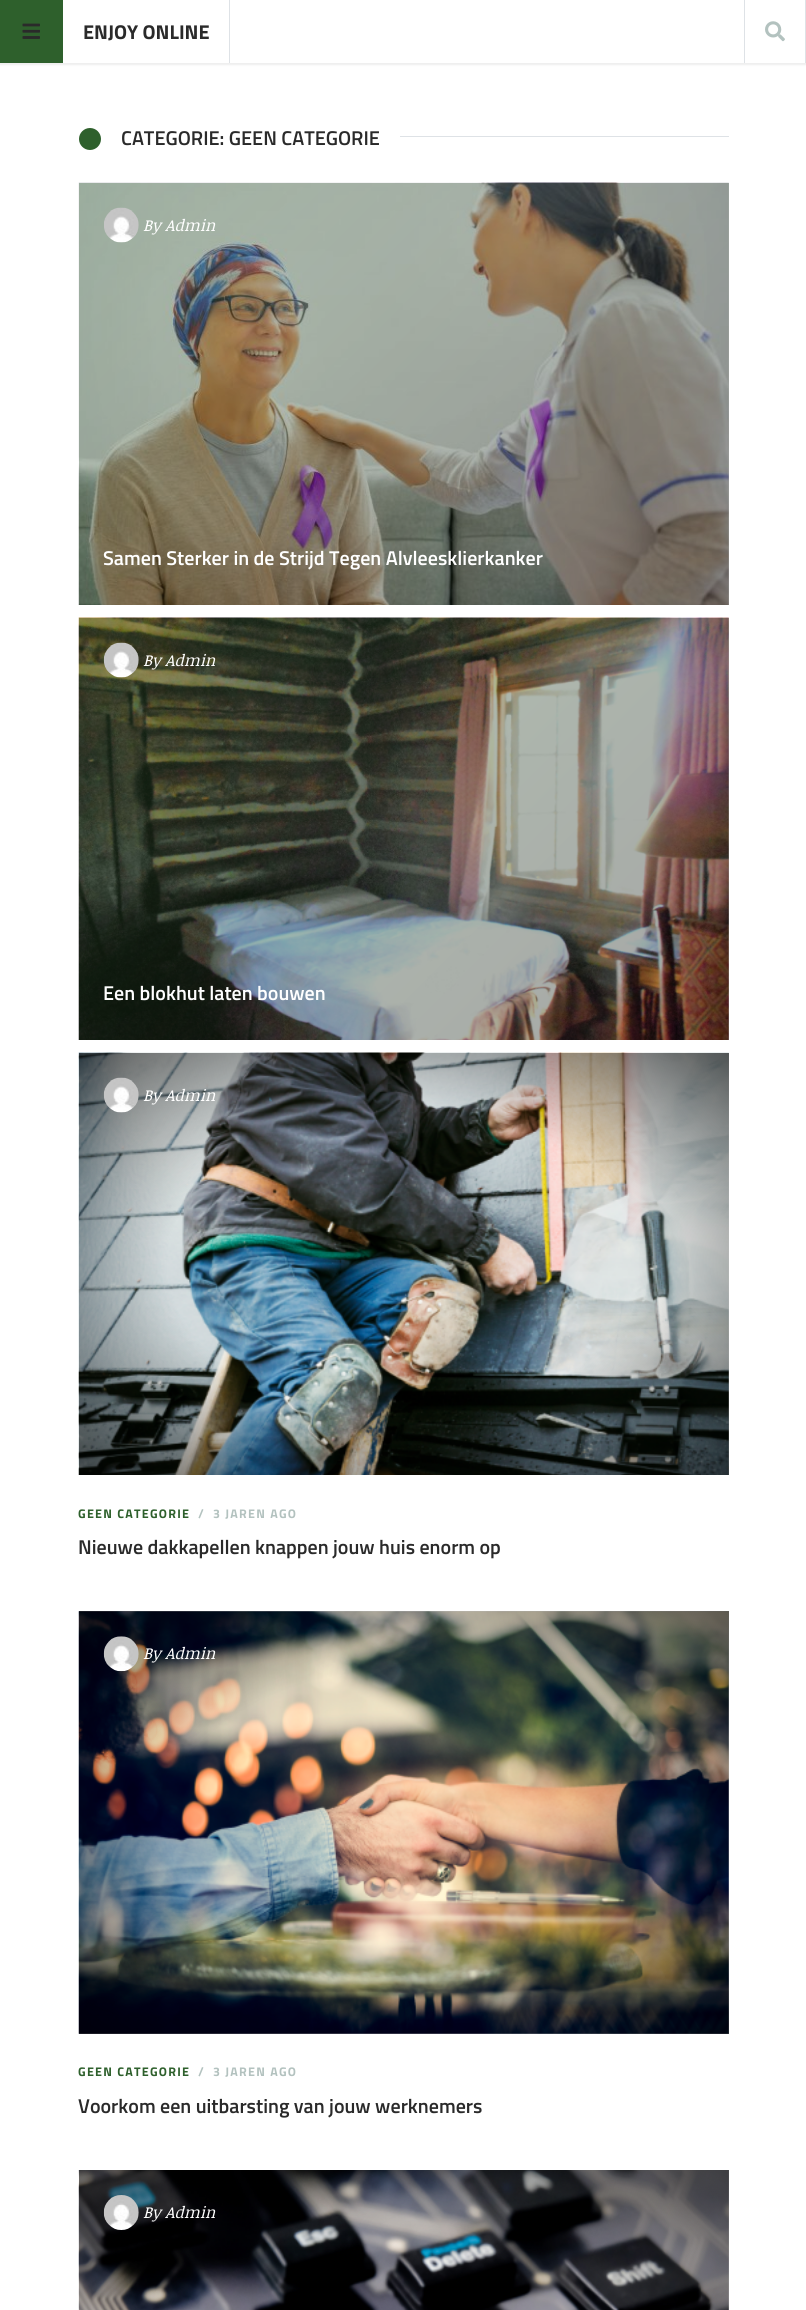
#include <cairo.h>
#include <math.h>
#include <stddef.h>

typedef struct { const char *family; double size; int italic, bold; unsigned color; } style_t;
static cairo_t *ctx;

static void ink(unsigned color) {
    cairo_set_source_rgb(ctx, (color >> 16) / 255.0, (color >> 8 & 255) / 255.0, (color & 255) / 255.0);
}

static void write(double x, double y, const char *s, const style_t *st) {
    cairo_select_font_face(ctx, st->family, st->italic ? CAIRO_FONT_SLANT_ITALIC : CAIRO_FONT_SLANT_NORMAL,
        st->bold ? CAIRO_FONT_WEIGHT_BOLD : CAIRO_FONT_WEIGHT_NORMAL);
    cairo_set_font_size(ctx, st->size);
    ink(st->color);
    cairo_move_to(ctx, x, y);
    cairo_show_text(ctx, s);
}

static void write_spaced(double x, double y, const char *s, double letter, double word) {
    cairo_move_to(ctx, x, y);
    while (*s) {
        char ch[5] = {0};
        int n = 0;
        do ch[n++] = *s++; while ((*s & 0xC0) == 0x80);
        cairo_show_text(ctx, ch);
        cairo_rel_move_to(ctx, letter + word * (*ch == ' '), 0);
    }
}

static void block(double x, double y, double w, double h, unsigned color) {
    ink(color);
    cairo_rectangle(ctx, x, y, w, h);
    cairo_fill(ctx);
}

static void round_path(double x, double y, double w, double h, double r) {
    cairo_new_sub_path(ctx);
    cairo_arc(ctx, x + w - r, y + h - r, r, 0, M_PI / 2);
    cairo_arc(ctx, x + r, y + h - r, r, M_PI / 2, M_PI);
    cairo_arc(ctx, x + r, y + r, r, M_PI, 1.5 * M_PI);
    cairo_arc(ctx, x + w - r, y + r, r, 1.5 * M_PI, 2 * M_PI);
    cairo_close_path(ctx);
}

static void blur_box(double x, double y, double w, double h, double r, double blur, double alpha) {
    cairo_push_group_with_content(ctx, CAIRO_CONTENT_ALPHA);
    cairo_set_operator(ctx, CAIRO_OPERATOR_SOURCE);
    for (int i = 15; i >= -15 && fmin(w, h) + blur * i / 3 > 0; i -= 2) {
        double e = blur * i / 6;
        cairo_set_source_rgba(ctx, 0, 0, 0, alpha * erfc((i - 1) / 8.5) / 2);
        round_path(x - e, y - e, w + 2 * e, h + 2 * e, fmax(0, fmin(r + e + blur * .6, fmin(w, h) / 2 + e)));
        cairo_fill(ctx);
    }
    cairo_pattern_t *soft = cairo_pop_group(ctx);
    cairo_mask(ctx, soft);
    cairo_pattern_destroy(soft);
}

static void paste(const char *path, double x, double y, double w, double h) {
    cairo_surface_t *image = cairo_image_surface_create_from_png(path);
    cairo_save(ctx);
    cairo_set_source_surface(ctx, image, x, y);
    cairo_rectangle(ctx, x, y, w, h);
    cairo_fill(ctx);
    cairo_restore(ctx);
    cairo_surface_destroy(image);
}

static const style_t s1 = {"Titillium Web", 20, 0, 1, 0x2a2a2a};
static const style_t s2 = {"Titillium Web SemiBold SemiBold", 20, 0, 0, 0x2a2a2a};
static const style_t s3 = {"Noticia Text", 16, 1, 0, 0xffffff};
static const style_t s4 = {"Titillium Web SemiBold SemiBold", 20, 0, 0, 0xffffff};

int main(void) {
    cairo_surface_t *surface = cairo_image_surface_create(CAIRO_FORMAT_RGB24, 806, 2310);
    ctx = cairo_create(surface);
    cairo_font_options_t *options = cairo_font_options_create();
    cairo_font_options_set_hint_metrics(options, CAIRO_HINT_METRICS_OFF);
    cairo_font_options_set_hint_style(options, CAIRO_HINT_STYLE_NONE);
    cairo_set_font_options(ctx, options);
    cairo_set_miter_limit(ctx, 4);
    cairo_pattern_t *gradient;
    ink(0xffffff);
    cairo_paint(ctx);
    ink(0x000000);
    blur_box(-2, -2, 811, 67, 0, 1, 0.07);
    block(63, 0, 742, 63, 0xffffff);
    block(0, 0, 63, 63, 0x2e602c);
    paste("pic1.png", 22, 23, 18, 16);
    block(229, 0, 1, 63, 0xdee2e6);
    write(83, 39, "ENJOY ONLINE", &s1);
    block(805, 0, 1, 63, 0xdee2e6);
    block(744, 0, 1, 63, 0xdee2e6);
    paste("pic2.png", 765, 21, 20, 21);
    ink(0x2e602c);
    cairo_arc(ctx, 90, 139, 11, 0, 2 * M_PI);
    cairo_fill(ctx);
    write(121, 145, "CATEGORIE: GEEN CATEGORIE", &s2);
    block(400, 136, 329, 1, 0xdee2e6);
    paste("pic3.png", 78, 182, 651, 423);
    gradient = cairo_pattern_create_linear(678, 669, 128, 119);
    cairo_pattern_add_color_stop_rgba(gradient, 0, 0, 0, 0, 0.35);
    cairo_pattern_add_color_stop_rgba(gradient, 1, 0.18, 0.376, 0.173, 0.35);
    cairo_set_source(ctx, gradient);
    cairo_pattern_destroy(gradient);
    cairo_rectangle(ctx, 79, 183, 650, 422);
    cairo_fill(ctx);
    paste("pic4.png", 104, 207, 35, 36);
    write(143, 231, "By Admin", &s3);
    write(103, 565, "Samen Sterker in de Strijd Tegen Alvleesklierkanker", &s4);
    paste("pic5.png", 78, 617, 651, 423);
    gradient = cairo_pattern_create_linear(678, 1104, 128, 554);
    cairo_pattern_add_color_stop_rgba(gradient, 0, 0, 0, 0, 0.35);
    cairo_pattern_add_color_stop_rgba(gradient, 1, 0.18, 0.376, 0.173, 0.35);
    cairo_set_source(ctx, gradient);
    cairo_pattern_destroy(gradient);
    cairo_rectangle(ctx, 79, 618, 650, 422);
    cairo_fill(ctx);
    paste("pic6.png", 103, 642, 36, 36);
    write(143, 666, "By Admin", &s3);
    write(103, 1000, "Een blokhut laten bouwen", &s4);
    paste("pic7.png", 78, 1052, 651, 423);
    gradient = cairo_pattern_create_radial(0, 0, 0, 0, 0, 1);
    cairo_pattern_set_matrix(gradient, &(cairo_matrix_t){1.0 / 471, 0, 0, 1.0 / 306, -1.0 * 403 / 471, -1.0 * 1264 / 306});
    cairo_pattern_add_color_stop_rgba(gradient, 0, 0, 0, 0, 0);
    cairo_pattern_add_color_stop_rgba(gradient, 0.5, 0, 0, 0, 0);
    cairo_pattern_add_color_stop_rgba(gradient, 1, 0, 0, 0, 0.65);
    cairo_set_source(ctx, gradient);
    cairo_pattern_destroy(gradient);
    cairo_rectangle(ctx, 79, 1053, 650, 422);
    cairo_fill(ctx);
    paste("pic8.png", 103, 1077, 36, 36);
    write(143, 1101, "By Admin", &s3);
    cairo_select_font_face(ctx, "Titillium Web", CAIRO_FONT_SLANT_NORMAL, CAIRO_FONT_WEIGHT_BOLD);
    cairo_set_font_size(ctx, 12.5);
    ink(0x2e602c);
    write_spaced(78, 1518, "GEEN CATEGORIE", 1.25, 0);
    ink(0xb3c2bf);
    write_spaced(198, 1518, "/", 1.25, 0);
    write_spaced(213, 1518, "3 JAREN AGO", 1.25, 0);
    write(78, 1554, "Nieuwe dakkapellen knappen jouw huis enorm op", &s2);
    paste("pic9.png", 78, 1611, 651, 423);
    gradient = cairo_pattern_create_radial(0, 0, 0, 0, 0, 1);
    cairo_pattern_set_matrix(gradient, &(cairo_matrix_t){1.0 / 471, 0, 0, 1.0 / 306, -1.0 * 403 / 471, -1.0 * 1823 / 306});
    cairo_pattern_add_color_stop_rgba(gradient, 0, 0, 0, 0, 0);
    cairo_pattern_add_color_stop_rgba(gradient, 0.5, 0, 0, 0, 0);
    cairo_pattern_add_color_stop_rgba(gradient, 1, 0, 0, 0, 0.65);
    cairo_set_source(ctx, gradient);
    cairo_pattern_destroy(gradient);
    cairo_rectangle(ctx, 79, 1611, 650, 423);
    cairo_fill(ctx);
    paste("pic10.png", 103, 1636, 36, 36);
    write(143, 1659, "By Admin", &s3);
    cairo_select_font_face(ctx, "Titillium Web", CAIRO_FONT_SLANT_NORMAL, CAIRO_FONT_WEIGHT_BOLD);
    cairo_set_font_size(ctx, 12.5);
    ink(0x2e602c);
    write_spaced(78, 2076, "GEEN CATEGORIE", 1.25, 0);
    ink(0xb3c2bf);
    write_spaced(198, 2076, "/", 1.25, 0);
    write_spaced(213, 2076, "3 JAREN AGO", 1.25, 0);
    write(78, 2113, "Voorkom een uitbarsting van jouw werknemers", &s2);
    paste("pic11.png", 78, 2170, 651, 140);
    gradient = cairo_pattern_create_radial(0, 0, 0, 0, 0, 1);
    cairo_pattern_set_matrix(gradient, &(cairo_matrix_t){1.0 / 471, 0, 0, 1.0 / 306, -1.0 * 403 / 471, -1.0 * 2382 / 306});
    cairo_pattern_add_color_stop_rgba(gradient, 0, 0, 0, 0, 0);
    cairo_pattern_add_color_stop_rgba(gradient, 0.5, 0, 0, 0, 0);
    cairo_pattern_add_color_stop_rgba(gradient, 1, 0, 0, 0, 0.65);
    cairo_set_source(ctx, gradient);
    cairo_pattern_destroy(gradient);
    cairo_rectangle(ctx, 79, 2170, 650, 140);
    cairo_fill(ctx);
    paste("pic12.png", 103, 2195, 36, 35);
    write(143, 2218, "By Admin", &s3);
    cairo_surface_write_to_png(surface, "screenshot.png");
    cairo_font_options_destroy(options);
    cairo_destroy(ctx);
    cairo_surface_destroy(surface);
    return 0;
}
